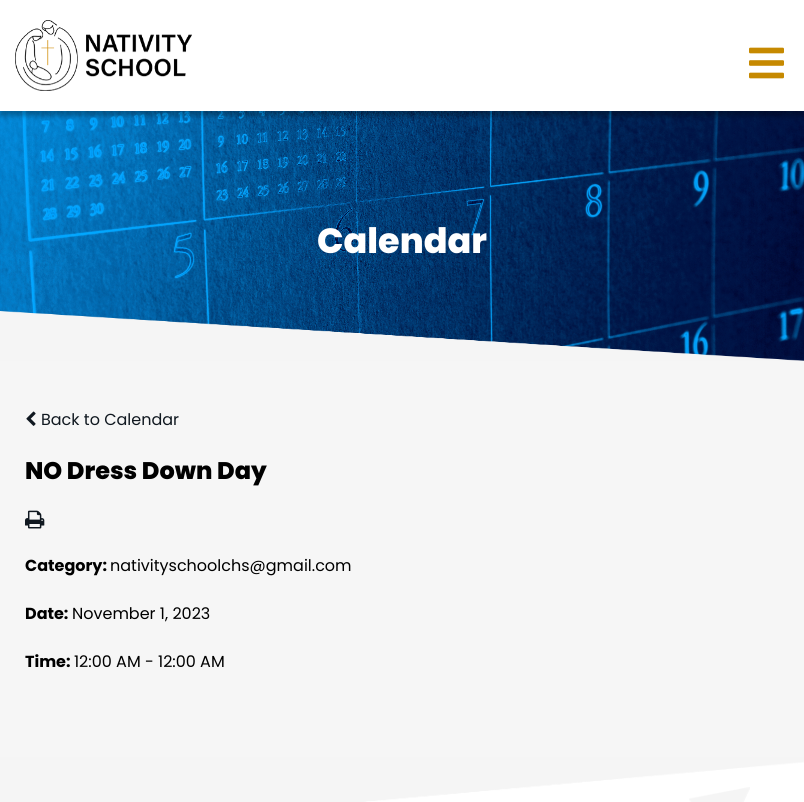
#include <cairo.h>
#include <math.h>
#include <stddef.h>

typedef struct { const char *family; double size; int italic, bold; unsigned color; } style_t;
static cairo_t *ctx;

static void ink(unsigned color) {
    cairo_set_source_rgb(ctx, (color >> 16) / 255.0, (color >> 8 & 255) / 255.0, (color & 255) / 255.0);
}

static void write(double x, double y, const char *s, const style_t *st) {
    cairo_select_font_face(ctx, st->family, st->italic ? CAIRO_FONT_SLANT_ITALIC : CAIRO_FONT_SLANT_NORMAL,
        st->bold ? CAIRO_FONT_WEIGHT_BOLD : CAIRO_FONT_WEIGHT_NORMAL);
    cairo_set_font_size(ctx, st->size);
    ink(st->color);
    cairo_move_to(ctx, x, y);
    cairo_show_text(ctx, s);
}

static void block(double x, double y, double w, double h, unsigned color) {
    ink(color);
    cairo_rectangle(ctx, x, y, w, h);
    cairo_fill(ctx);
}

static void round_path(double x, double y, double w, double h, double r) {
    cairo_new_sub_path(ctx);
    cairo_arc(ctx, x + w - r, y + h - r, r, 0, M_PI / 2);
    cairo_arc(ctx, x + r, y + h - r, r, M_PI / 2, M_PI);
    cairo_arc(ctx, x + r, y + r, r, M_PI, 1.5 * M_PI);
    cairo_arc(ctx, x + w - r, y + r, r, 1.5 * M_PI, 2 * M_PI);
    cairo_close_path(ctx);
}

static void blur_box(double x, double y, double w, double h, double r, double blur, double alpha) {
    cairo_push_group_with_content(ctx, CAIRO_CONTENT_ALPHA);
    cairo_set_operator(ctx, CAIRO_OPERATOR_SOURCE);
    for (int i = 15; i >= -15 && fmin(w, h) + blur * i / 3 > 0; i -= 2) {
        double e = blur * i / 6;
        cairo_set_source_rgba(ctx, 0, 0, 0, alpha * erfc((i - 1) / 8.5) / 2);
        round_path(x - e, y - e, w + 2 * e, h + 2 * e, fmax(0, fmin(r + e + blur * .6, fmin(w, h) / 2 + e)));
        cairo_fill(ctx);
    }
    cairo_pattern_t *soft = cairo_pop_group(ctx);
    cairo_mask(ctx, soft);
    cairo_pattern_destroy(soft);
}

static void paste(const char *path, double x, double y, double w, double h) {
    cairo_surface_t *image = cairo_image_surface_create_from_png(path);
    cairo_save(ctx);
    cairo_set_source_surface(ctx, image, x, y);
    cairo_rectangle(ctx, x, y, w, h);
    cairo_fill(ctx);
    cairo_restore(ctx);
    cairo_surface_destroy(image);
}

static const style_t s1 = {"Poppins ExtraBold", 35, 0, 0, 0xffffff};
static const style_t s2 = {"Poppins", 16, 0, 0, 0x101820};
static const style_t s3 = {"Poppins ExtraBold", 24, 0, 0, 0x000000};
static const style_t s4 = {"Poppins", 16, 0, 1, 0x000000};
static const style_t s5 = {"Poppins", 16, 0, 0, 0x000000};

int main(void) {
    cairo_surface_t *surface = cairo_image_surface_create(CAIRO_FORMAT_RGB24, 804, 802);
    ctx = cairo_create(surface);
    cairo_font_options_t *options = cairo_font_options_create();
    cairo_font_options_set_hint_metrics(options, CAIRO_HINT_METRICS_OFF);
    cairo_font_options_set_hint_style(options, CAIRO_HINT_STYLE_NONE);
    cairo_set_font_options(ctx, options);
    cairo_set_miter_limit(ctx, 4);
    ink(0xf6f6f6);
    cairo_paint(ctx);
    paste("pic3.png", 0, 111, 804, 250);
    ink(0x000000);
    blur_box(0, 5, 804, 111, 0, 2.5, 0.3);
    block(0, 0, 804, 111, 0xffffff);
    paste("pic1.png", 15, 20, 177, 71);
    paste("pic2.png", 749, 47, 35, 32);
    write(317, 253, "Calendar", &s1);
    paste("pic4.png", 0, 311, 804, 50);
    paste("pic5.png", 26, 411, 10, 15);
    write(41, 425, "Back to Calendar", &s2);
    write(25, 479, "NO Dress Down Day", &s3);
    paste("pic6.png", 25, 510, 20, 19);
    write(25, 571, "Category:", &s4);
    write(110, 571, "nativityschoolchs@gmail.com", &s5);
    write(25, 619, "Date:", &s4);
    write(72, 619, "November 1, 2023", &s5);
    write(25, 667, "Time:", &s4);
    write(74, 667, "12:00 AM - 12:00 AM", &s5);
    block(364, 761, 440, 41, 0xffffff);
    paste("pic7.png", 689, 787, 61, 15);
    paste("pic8.png", 0, 757, 804, 45);
    cairo_surface_write_to_png(surface, "screenshot.png");
    cairo_font_options_destroy(options);
    cairo_destroy(ctx);
    cairo_surface_destroy(surface);
    return 0;
}
